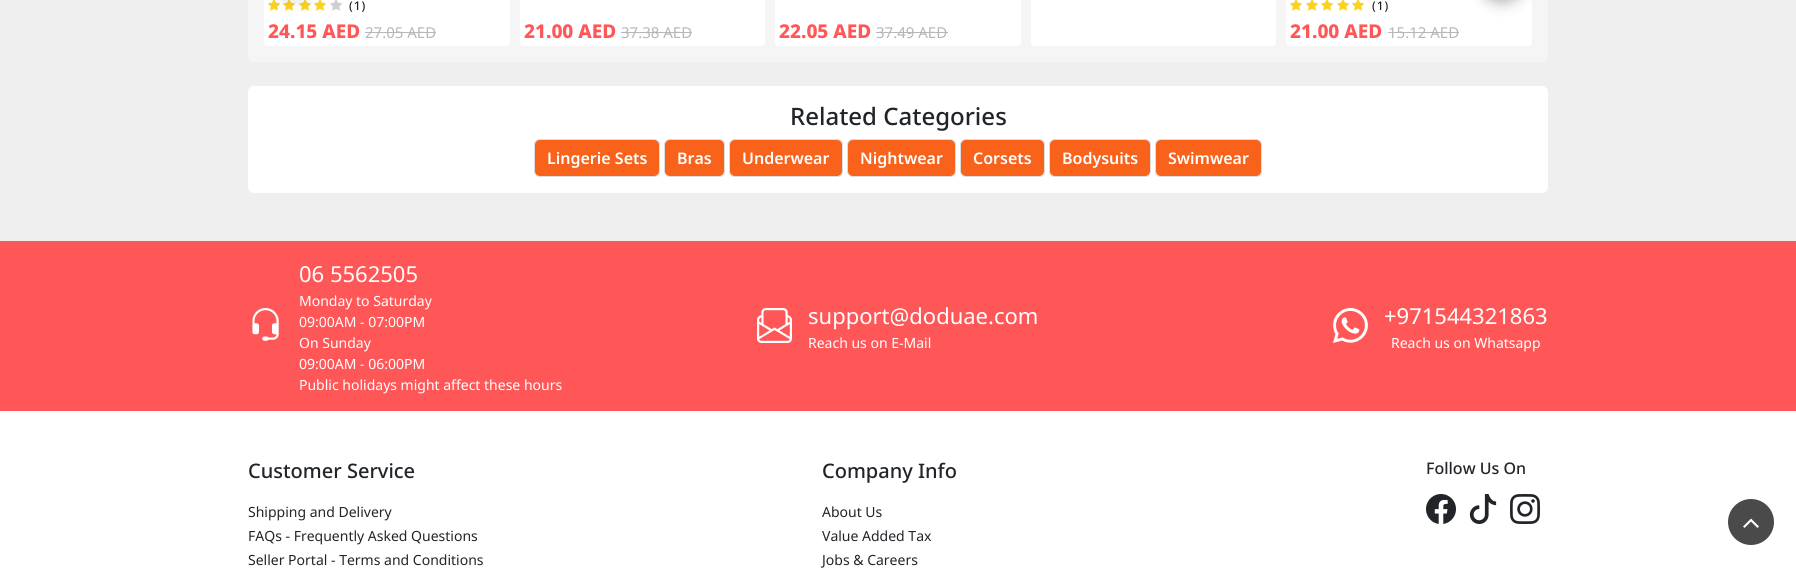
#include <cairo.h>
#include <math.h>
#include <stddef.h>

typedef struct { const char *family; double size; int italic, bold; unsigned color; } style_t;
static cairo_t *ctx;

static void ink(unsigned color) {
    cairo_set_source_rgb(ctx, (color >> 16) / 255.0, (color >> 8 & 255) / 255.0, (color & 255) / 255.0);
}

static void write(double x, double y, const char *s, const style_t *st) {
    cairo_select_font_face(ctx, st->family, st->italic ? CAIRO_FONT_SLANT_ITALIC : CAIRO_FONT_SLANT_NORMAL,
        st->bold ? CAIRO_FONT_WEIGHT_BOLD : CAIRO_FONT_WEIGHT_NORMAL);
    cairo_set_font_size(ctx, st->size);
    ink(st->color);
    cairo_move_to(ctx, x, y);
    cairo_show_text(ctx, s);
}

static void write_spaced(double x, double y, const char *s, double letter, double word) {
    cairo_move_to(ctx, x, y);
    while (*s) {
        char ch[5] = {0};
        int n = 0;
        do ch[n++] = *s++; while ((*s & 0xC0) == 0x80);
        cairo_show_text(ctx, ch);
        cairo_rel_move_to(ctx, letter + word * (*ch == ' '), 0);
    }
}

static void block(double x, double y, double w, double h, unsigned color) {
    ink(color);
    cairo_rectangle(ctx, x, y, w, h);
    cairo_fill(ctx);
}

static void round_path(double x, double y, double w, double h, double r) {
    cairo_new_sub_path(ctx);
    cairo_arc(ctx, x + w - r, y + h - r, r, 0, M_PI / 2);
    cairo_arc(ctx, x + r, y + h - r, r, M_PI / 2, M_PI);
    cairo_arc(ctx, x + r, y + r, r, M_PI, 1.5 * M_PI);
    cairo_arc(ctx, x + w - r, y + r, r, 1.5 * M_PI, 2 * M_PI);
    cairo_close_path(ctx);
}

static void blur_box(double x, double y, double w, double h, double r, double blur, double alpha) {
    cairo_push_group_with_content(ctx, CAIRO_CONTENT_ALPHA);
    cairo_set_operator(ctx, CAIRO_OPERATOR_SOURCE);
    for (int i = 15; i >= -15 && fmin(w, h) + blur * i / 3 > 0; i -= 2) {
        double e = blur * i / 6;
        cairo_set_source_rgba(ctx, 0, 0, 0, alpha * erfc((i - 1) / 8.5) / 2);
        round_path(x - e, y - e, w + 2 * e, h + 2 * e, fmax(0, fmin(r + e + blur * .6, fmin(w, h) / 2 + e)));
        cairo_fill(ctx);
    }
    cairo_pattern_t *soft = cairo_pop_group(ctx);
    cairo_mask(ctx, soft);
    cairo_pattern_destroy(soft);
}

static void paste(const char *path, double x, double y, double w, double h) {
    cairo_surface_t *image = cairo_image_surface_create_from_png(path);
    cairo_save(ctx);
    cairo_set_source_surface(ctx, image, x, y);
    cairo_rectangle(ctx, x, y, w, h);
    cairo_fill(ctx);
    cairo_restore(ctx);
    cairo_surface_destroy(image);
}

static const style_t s1 = {"Noto Sans ExtraBold", 19, 0, 0, 0xff5757};
static const style_t s2 = {"Noto Sans", 15, 0, 0, 0xb7b7b7};
static const style_t s3 = {"Noto Sans Medium", 24, 0, 0, 0x212529};
static const style_t s4 = {"Noto Sans SemiBold", 16, 0, 0, 0xffffff};
static const style_t s5 = {"Noto Sans", 22, 0, 0, 0xffffff};
static const style_t s6 = {"Noto Sans", 14, 0, 0, 0xffffff};
static const style_t s7 = {"Noto Sans Medium", 20, 0, 0, 0x212529};
static const style_t s8 = {"Noto Sans", 14, 0, 0, 0x212529};
static const style_t s9 = {"Noto Sans Medium", 16, 0, 0, 0x212529};

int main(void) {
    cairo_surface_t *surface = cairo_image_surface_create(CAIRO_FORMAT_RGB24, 1796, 580);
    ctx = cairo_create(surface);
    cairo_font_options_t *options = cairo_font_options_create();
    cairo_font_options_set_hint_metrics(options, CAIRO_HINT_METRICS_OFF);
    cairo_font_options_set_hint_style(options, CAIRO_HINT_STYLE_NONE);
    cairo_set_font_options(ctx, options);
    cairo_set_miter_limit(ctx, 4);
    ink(0xefefef);
    cairo_paint(ctx);
    ink(0xf5f5f5);
    round_path(248, -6, 1300, 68, 6);
    cairo_fill(ctx);
    ink(0xffffff);
    round_path(264, -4, 246, 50, 4);
    cairo_fill(ctx);
    paste("pic1.png", 268, 0, 12, 11);
    paste("pic1.png", 283, 0, 12, 11);
    paste("pic1.png", 299, 0, 12, 11);
    paste("pic1.png", 314, 0, 12, 11);
    paste("pic2.png", 330, 0, 12, 11);
    ink(0x000000);
    blur_box(274, -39, 40, 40, 20, 7.5, 0.12);
    ink(0xffffff);
    round_path(1286, -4, 246, 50, 4);
    cairo_fill(ctx);
    ink(0x000000);
    blur_box(1482, -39, 40, 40, 20, 7.5, 0.35);
    cairo_select_font_face(ctx, "Noto Sans Medium", CAIRO_FONT_SLANT_NORMAL, CAIRO_FONT_WEIGHT_NORMAL);
    cairo_set_font_size(ctx, 12);
    ink(0x212529);
    write_spaced(349, 10, "(1)", 1, 0);
    write(268, 38, "24.15 AED", &s1);
    write(365, 38, "27.05 AED", &s2);
    block(365, 32, 71, 1, 0xb7b7b7);
    ink(0xffffff);
    round_path(520, -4, 245, 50, 4);
    cairo_fill(ctx);
    write(524, 38, "21.00 AED", &s1);
    write(621, 38, "37.38 AED", &s2);
    block(621, 32, 71, 1, 0xb7b7b7);
    ink(0xffffff);
    round_path(775, -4, 246, 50, 4);
    cairo_fill(ctx);
    write(779, 38, "22.05 AED", &s1);
    write(876, 38, "37.49 AED", &s2);
    block(876, 32, 72, 1, 0xb7b7b7);
    ink(0xffffff);
    round_path(1031, -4, 245, 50, 4);
    cairo_fill(ctx);
    paste("pic1.png", 1290, 0, 12, 11);
    paste("pic1.png", 1306, 0, 12, 11);
    paste("pic1.png", 1321, 0, 12, 11);
    paste("pic1.png", 1337, 0, 12, 11);
    paste("pic1.png", 1352, 0, 12, 11);
    cairo_select_font_face(ctx, "Noto Sans Medium", CAIRO_FONT_SLANT_NORMAL, CAIRO_FONT_WEIGHT_NORMAL);
    cairo_set_font_size(ctx, 12);
    ink(0x212529);
    write_spaced(1372, 10, "(1)", 1, 0);
    write(1290, 38, "21.00 AED", &s1);
    write(1388, 38, "15.12 AED", &s2);
    block(1388, 32, 71, 1, 0xb7b7b7);
    ink(0xffffff);
    round_path(248, 86, 1300, 107, 6);
    cairo_fill(ctx);
    write(790, 125, "Related Categories", &s3);
    ink(0xf9621b);
    round_path(534.5, 139.5, 125, 37, 5.5);
    cairo_fill_preserve(ctx);
    ink(0xdddddd);
    cairo_set_line_width(ctx, 1);
    cairo_stroke(ctx);
    write(547, 164, "Lingerie Sets", &s4);
    ink(0xf9621b);
    round_path(664.5, 139.5, 60, 37, 5.5);
    cairo_fill_preserve(ctx);
    ink(0xdddddd);
    cairo_stroke(ctx);
    write(677, 164, "Bras", &s4);
    ink(0xf9621b);
    round_path(729.5, 139.5, 113, 37, 5.5);
    cairo_fill_preserve(ctx);
    ink(0xdddddd);
    cairo_stroke(ctx);
    write(742, 164, "Underwear", &s4);
    ink(0xf9621b);
    round_path(847.5, 139.5, 108, 37, 5.5);
    cairo_fill_preserve(ctx);
    ink(0xdddddd);
    cairo_stroke(ctx);
    write(860, 164, "Nightwear", &s4);
    ink(0xf9621b);
    round_path(960.5, 139.5, 84, 37, 5.5);
    cairo_fill_preserve(ctx);
    ink(0xdddddd);
    cairo_stroke(ctx);
    write(973, 164, "Corsets", &s4);
    ink(0xf9621b);
    round_path(1049.5, 139.5, 101, 37, 5.5);
    cairo_fill_preserve(ctx);
    ink(0xdddddd);
    cairo_stroke(ctx);
    write(1062, 164, "Bodysuits", &s4);
    ink(0xf9621b);
    round_path(1155.5, 139.5, 106, 37, 5.5);
    cairo_fill_preserve(ctx);
    ink(0xdddddd);
    cairo_stroke(ctx);
    write(1168, 164, "Swimwear", &s4);
    block(0, 241, 1796, 170, 0xff5757);
    paste("pic3.png", 252, 308, 27, 33);
    write(299, 282, "06 5562505", &s5);
    write(299, 306, "Monday to Saturday", &s6);
    write(299, 327, "09:00AM - 07:00PM", &s6);
    write(299, 348, "On Sunday", &s6);
    write(299, 369, "09:00AM - 06:00PM", &s6);
    write(299, 390, "Public holidays might affect these hours", &s6);
    paste("pic4.png", 757, 308, 35, 35);
    write(808, 324, "support@doduae.com", &s5);
    write(808, 348, "Reach us on E-Mail", &s6);
    paste("pic5.png", 1333, 308, 35, 35);
    write(1384, 324, "+971544321863", &s5);
    write(1391, 348, "Reach us on Whatsapp", &s6);
    block(0, 411, 1796, 169, 0xffffff);
    write(248, 478, "Customer Service", &s7);
    write(248, 517, "Shipping and Delivery", &s8);
    write(248, 541, "FAQs - Frequently Asked Questions", &s8);
    write(248, 565, "Seller Portal - Terms and Conditions", &s8);
    write(822, 478, "Company Info", &s7);
    write(822, 517, "About Us", &s8);
    write(822, 541, "Value Added Tax", &s8);
    write(822, 565, "Jobs & Careers", &s8);
    write(1426, 474, "Follow Us On", &s9);
    paste("pic6.png", 1426, 494, 30, 30);
    paste("pic7.png", 1469, 494, 28, 30);
    paste("pic8.png", 1510, 494, 30, 30);
    ink(0x4a4a4a);
    cairo_arc(ctx, 1751, 522, 23, 0, 2 * M_PI);
    cairo_fill(ctx);
    paste("pic9.png", 1743, 518, 16, 10);
    cairo_surface_write_to_png(surface, "screenshot.png");
    cairo_font_options_destroy(options);
    cairo_destroy(ctx);
    cairo_surface_destroy(surface);
    return 0;
}
